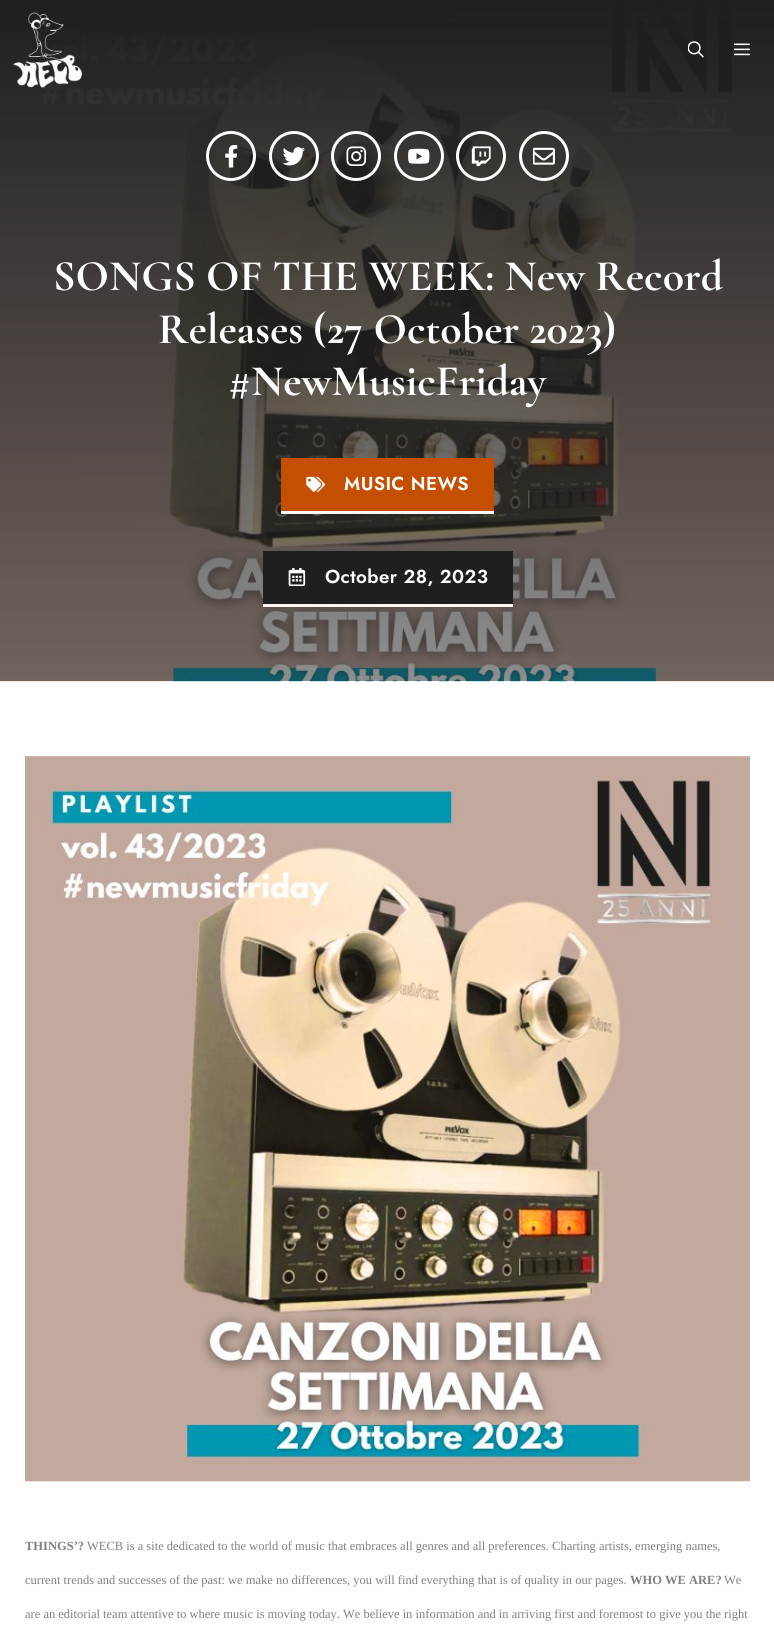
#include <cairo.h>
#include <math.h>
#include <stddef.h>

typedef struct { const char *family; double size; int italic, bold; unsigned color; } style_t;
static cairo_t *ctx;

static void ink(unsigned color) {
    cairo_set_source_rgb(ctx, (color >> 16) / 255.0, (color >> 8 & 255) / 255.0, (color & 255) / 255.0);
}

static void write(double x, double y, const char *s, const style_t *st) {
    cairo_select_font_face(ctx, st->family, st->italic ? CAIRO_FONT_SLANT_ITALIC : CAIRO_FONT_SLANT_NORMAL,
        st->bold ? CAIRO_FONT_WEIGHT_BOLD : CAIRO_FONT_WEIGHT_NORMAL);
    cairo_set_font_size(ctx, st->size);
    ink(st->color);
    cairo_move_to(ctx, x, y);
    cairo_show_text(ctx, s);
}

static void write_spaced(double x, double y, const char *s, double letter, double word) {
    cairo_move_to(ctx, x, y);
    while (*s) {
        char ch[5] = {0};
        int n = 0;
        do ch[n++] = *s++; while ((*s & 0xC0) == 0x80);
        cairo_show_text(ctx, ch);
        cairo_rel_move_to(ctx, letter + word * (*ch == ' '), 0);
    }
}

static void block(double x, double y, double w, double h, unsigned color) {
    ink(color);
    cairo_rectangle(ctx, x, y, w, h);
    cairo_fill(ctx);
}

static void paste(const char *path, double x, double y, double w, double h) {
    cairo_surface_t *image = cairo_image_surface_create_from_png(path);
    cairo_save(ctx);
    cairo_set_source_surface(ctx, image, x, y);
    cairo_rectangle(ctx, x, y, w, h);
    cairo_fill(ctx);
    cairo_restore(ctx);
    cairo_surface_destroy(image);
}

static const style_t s1 = {"Cormorant Garamond", 43.75, 0, 1, 0xffffff};
static const style_t s2 = {"Liberation Serif", 12.5, 0, 1, 0x808080};
static const style_t s3 = {"Liberation Serif", 12.5, 0, 0, 0x808080};

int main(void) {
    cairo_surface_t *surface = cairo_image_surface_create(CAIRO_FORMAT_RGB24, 774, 1641);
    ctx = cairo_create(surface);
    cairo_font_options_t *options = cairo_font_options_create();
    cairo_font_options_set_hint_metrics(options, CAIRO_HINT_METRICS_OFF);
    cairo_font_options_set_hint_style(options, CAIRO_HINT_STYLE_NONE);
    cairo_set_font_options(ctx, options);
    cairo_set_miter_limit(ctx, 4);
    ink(0xffffff);
    cairo_paint(ctx);
    paste("pic10.png", 0, 0, 774, 682);
    paste("pic1.png", 12, 12, 71, 76);
    paste("pic2.png", 688, 41, 16, 17);
    paste("pic3.png", 734, 43, 16, 13);
    cairo_arc(ctx, 231, 156, 23.5, 0, 2 * M_PI);
    ink(0xffffff);
    cairo_set_line_width(ctx, 3);
    cairo_stroke(ctx);
    paste("pic4.png", 225, 145, 13, 23);
    cairo_arc(ctx, 294, 156, 23.5, 0, 2 * M_PI);
    cairo_stroke(ctx);
    paste("pic5.png", 283, 147, 22, 19);
    cairo_arc(ctx, 356, 156, 23.5, 0, 2 * M_PI);
    cairo_stroke(ctx);
    paste("pic6.png", 346, 146, 21, 20);
    cairo_arc(ctx, 419, 156, 23.5, 0, 2 * M_PI);
    cairo_stroke(ctx);
    paste("pic7.png", 408, 148, 22, 16);
    cairo_arc(ctx, 481, 156, 23.5, 0, 2 * M_PI);
    cairo_stroke(ctx);
    paste("pic8.png", 471, 146, 20, 21);
    cairo_arc(ctx, 544, 156, 23.5, 0, 2 * M_PI);
    cairo_stroke(ctx);
    paste("pic9.png", 533, 147, 22, 18);
    write(53, 290, "SONGS OF THE WEEK: New Record", &s1);
    write(158, 343, "Releases (27 October 2023)", &s1);
    write(228, 395, "#NewMusicFriday", &s1);
    block(281, 458, 213, 53, 0xc54f01);
    block(281, 511, 213, 3, 0xfbf6f3);
    paste("pic11.png", 306, 476, 19, 16);
    cairo_select_font_face(ctx, "Jost SemiBold", CAIRO_FONT_SLANT_NORMAL, CAIRO_FONT_WEIGHT_NORMAL);
    cairo_set_font_size(ctx, 18.75);
    ink(0xffffff);
    write_spaced(344, 490, "MUSIC NEWS", 0.4, 0);
    block(263, 551, 250, 53, 0x1f1f1f);
    block(263, 604, 250, 3, 0xfbf6f3);
    paste("pic12.png", 288, 568, 18, 18);
    ink(0xffffff);
    write_spaced(325, 583, "October 28, 2023", 0.4, 0);
    paste("pic13.png", 25, 756, 725, 726);
    write(25, 1550, "THINGS’?", &s2);
    write(87, 1550, "WECB is a site dedicated to the world of music that embraces all genres and all preferences. Charting artists, emerging names,", &s3);
    write(25, 1584, "current trends and successes of the past: we make no differences, you will find everything that is of quality in our pages.", &s3);
    write(630, 1584, "WHO WE ARE?", &s2);
    write(724, 1584, "We", &s3);
    write(25, 1618, "are an editorial team attentive to where music is moving today. We believe in information and in arriving first and foremost to give you the right", &s3);
    cairo_surface_write_to_png(surface, "screenshot.png");
    cairo_font_options_destroy(options);
    cairo_destroy(ctx);
    cairo_surface_destroy(surface);
    return 0;
}
